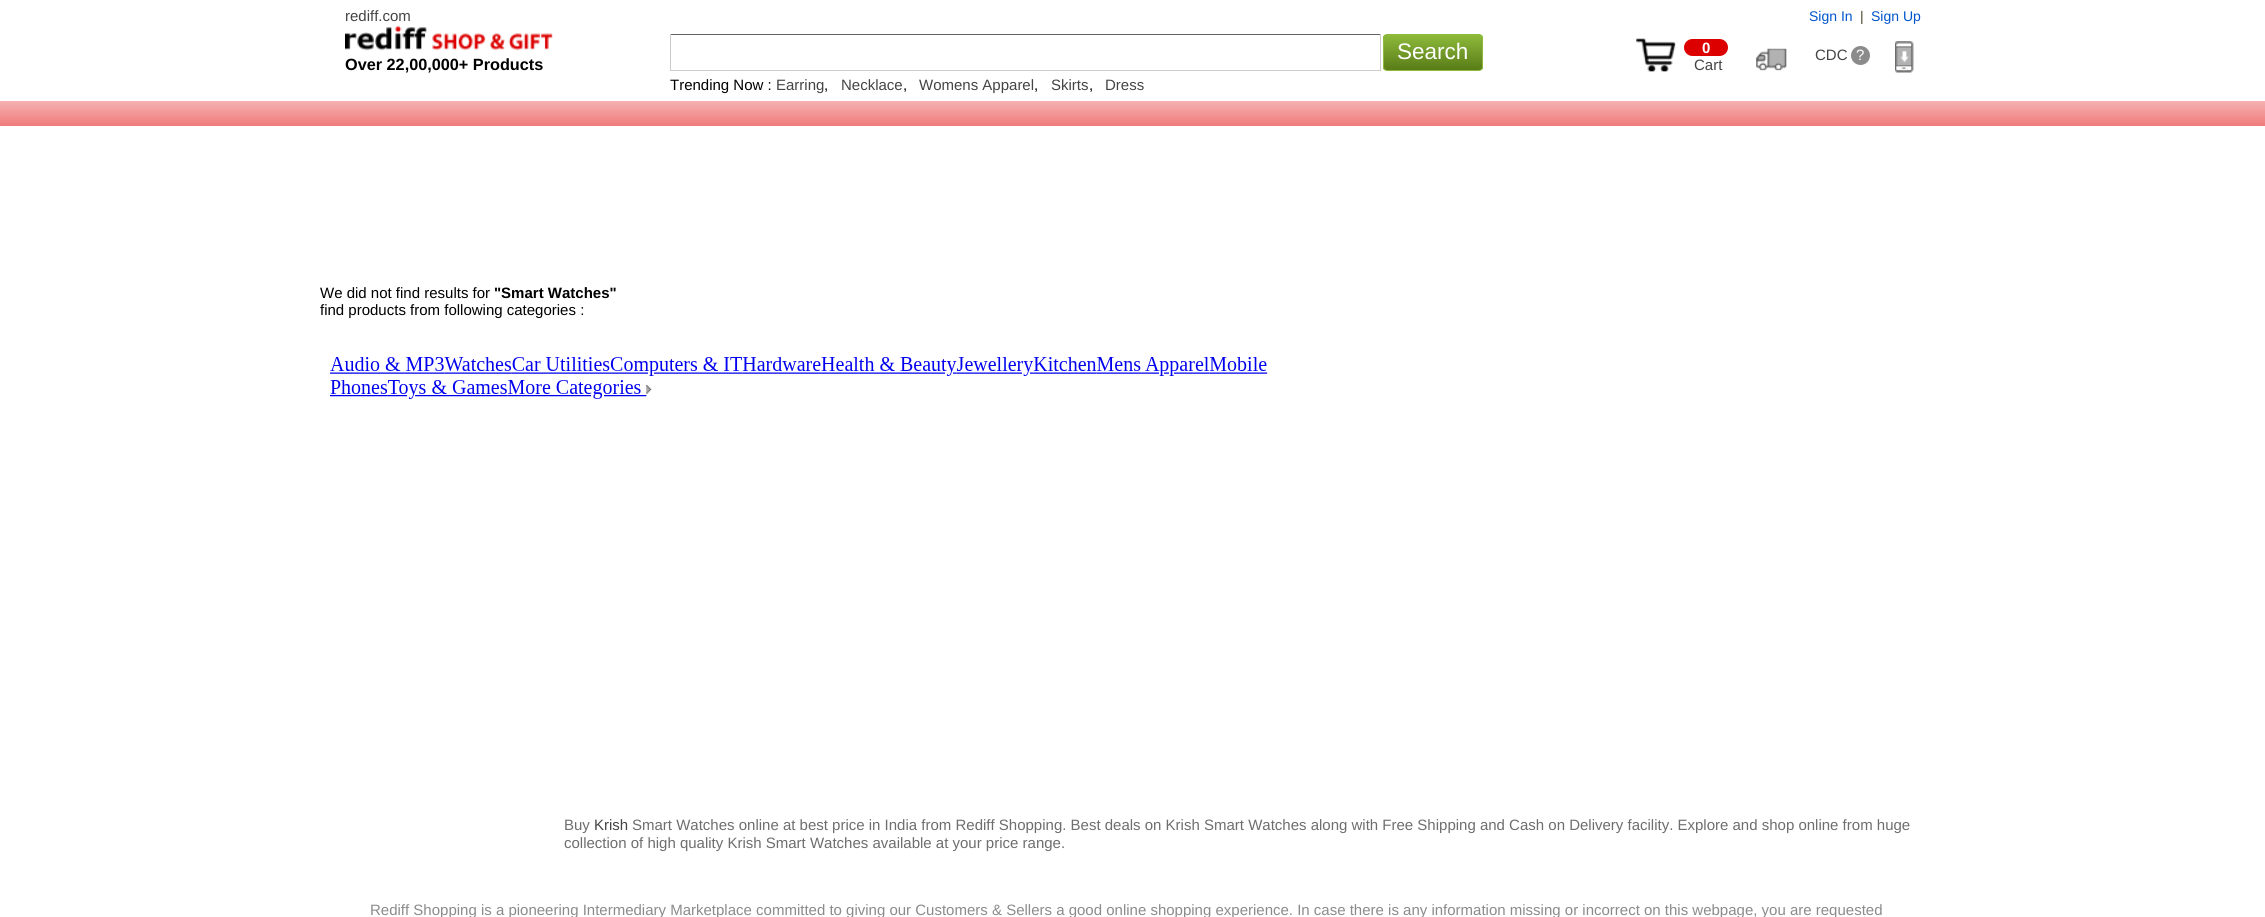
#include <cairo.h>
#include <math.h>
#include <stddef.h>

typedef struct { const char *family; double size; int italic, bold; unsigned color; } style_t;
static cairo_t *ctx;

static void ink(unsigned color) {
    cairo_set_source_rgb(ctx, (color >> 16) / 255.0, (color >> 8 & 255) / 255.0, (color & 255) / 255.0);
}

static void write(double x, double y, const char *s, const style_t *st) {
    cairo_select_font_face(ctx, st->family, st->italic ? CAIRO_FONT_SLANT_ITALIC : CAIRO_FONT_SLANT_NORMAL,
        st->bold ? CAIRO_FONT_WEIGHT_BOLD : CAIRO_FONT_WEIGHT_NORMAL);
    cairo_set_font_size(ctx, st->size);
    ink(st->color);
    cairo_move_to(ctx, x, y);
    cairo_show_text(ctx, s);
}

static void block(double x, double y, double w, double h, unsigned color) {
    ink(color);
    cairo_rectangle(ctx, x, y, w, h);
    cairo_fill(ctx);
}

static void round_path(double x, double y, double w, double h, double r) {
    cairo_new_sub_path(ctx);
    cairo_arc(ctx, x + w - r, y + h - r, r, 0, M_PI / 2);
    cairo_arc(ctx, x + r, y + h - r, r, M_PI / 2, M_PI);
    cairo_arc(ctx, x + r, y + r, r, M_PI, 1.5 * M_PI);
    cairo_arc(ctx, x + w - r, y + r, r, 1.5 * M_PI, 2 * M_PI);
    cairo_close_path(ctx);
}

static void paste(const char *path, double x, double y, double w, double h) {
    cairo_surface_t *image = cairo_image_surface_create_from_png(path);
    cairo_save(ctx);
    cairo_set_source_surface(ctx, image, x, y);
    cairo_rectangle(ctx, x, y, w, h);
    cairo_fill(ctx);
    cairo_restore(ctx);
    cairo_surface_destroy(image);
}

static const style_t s1 = {"Liberation Sans", 15, 0, 0, 0x444444};
static const style_t s2 = {"Liberation Sans", 14, 0, 0, 0x0055cc};
static const style_t s3 = {"Liberation Sans", 14, 0, 0, 0x4a462d};
static const style_t s4 = {"Liberation Sans", 16.25, 0, 1, 0x000000};
static const style_t s5 = {"Liberation Sans", 22.5, 0, 0, 0xffffff};
static const style_t s6 = {"Liberation Sans", 15, 0, 0, 0x000000};
static const style_t s7 = {"Liberation Sans", 15, 0, 1, 0xffffff};
static const style_t s8 = {"Liberation Sans", 15, 0, 0, 0xffffff};
static const style_t s9 = {"Liberation Sans", 15, 0, 1, 0x000000};
static const style_t s10 = {"Liberation Sans", 15, 0, 0, 0x6f6d6d};
static const style_t s11 = {"Liberation Sans", 15, 0, 0, 0x8b8b8b};

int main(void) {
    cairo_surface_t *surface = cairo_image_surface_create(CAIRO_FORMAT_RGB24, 2265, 917);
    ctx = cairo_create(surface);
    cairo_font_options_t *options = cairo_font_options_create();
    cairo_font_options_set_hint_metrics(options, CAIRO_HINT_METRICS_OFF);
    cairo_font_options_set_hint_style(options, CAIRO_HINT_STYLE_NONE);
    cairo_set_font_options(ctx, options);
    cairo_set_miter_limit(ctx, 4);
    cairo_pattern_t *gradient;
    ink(0xffffff);
    cairo_paint(ctx);
    write(345, 21, "rediff.com", &s1);
    write(1809, 21, "Sign In", &s2);
    write(1860, 21, "|", &s3);
    write(1871, 21, "Sign Up", &s2);
    paste("pic1.png", 345, 26, 208, 25);
    write(345, 70, "Over 22,00,000+ Products", &s4);
    block(670, 34, 711, 1, 0x656565);
    block(1380, 34, 1, 37, 0xcccccc);
    block(670, 70, 711, 1, 0xcccccc);
    block(670, 34, 1, 37, 0xcccccc);
    cairo_save(ctx);
    round_path(1383, 34, 100, 37, 4);
    cairo_clip(ctx);
    gradient = cairo_pattern_create_linear(1433, 35, 1433, 70);
    cairo_pattern_add_color_stop_rgba(gradient, 0, 0.553, 0.729, 0.227, 1);
    cairo_pattern_add_color_stop_rgba(gradient, 1, 0.349, 0.486, 0.094, 1);
    cairo_set_source(ctx, gradient);
    cairo_pattern_destroy(gradient);
    cairo_rectangle(ctx, 1383, 35, 100, 35);
    cairo_fill(ctx);
    cairo_restore(ctx);
    round_path(1383.5, 34.5, 99, 36, 3.5);
    ink(0x8dba3a);
    cairo_set_line_width(ctx, 1);
    cairo_stroke(ctx);
    write(1397, 59, "Search", &s5);
    write(670, 90, "Trending Now :", &s6);
    write(776, 90, "Earring", &s1);
    write(824, 90, ",", &s6);
    write(841, 90, "Necklace", &s1);
    write(903, 90, ",", &s6);
    write(919, 90, "Womens Apparel", &s1);
    write(1034, 90, ",", &s6);
    write(1051, 90, "Skirts", &s1);
    write(1089, 90, ",", &s6);
    write(1105, 90, "Dress", &s1);
    paste("pic2.png", 1636, 38, 40, 34);
    ink(0xdc0000);
    round_path(1684, 39, 44, 17, 8.5);
    cairo_fill(ctx);
    write(1702, 53, "0", &s7);
    write(1694, 70, "Cart", &s1);
    paste("pic3.png", 1756, 48, 31, 23);
    write(1815, 60, "CDC", &s1);
    ink(0x8b8b8b);
    cairo_new_path(ctx);
    cairo_arc(ctx, 1860.5, 55.5, 9.5, 0, 2 * M_PI);
    cairo_fill(ctx);
    write(1856, 60, "?", &s8);
    paste("pic4.png", 1895, 41, 19, 32);
    gradient = cairo_pattern_create_linear(1133, 101, 1133, 126);
    cairo_pattern_add_color_stop_rgba(gradient, 0, 0.961, 0.694, 0.694, 1);
    cairo_pattern_add_color_stop_rgba(gradient, 1, 0.937, 0.482, 0.482, 1);
    cairo_set_source(ctx, gradient);
    cairo_pattern_destroy(gradient);
    cairo_rectangle(ctx, 0, 101, 2265, 25);
    cairo_fill(ctx);
    write(320, 298, "We did not find results for", &s6);
    write(494, 298, "\"Smart Watches\"", &s9);
    write(320, 315, "find products from following categories :", &s6);
    paste("pic5.png", 330, 357, 938, 42);
    write(564, 830, "Buy", &s10);
    write(594, 830, "Krish", &s1);
    write(632, 830, "Smart Watches online at best price in India from Rediff Shopping. Best deals on Krish Smart Watches along with Free Shipping and Cash on Delivery facility. Explore and shop online from huge", &s10);
    write(564, 848, "collection of high quality Krish Smart Watches available at your price range.", &s10);
    write(370, 915, "Rediff Shopping is a pioneering Intermediary Marketplace committed to giving our Customers & Sellers a good online shopping experience. In case there is any information missing or incorrect on this webpage, you are requested", &s11);
    cairo_surface_write_to_png(surface, "screenshot.png");
    cairo_font_options_destroy(options);
    cairo_destroy(ctx);
    cairo_surface_destroy(surface);
    return 0;
}
